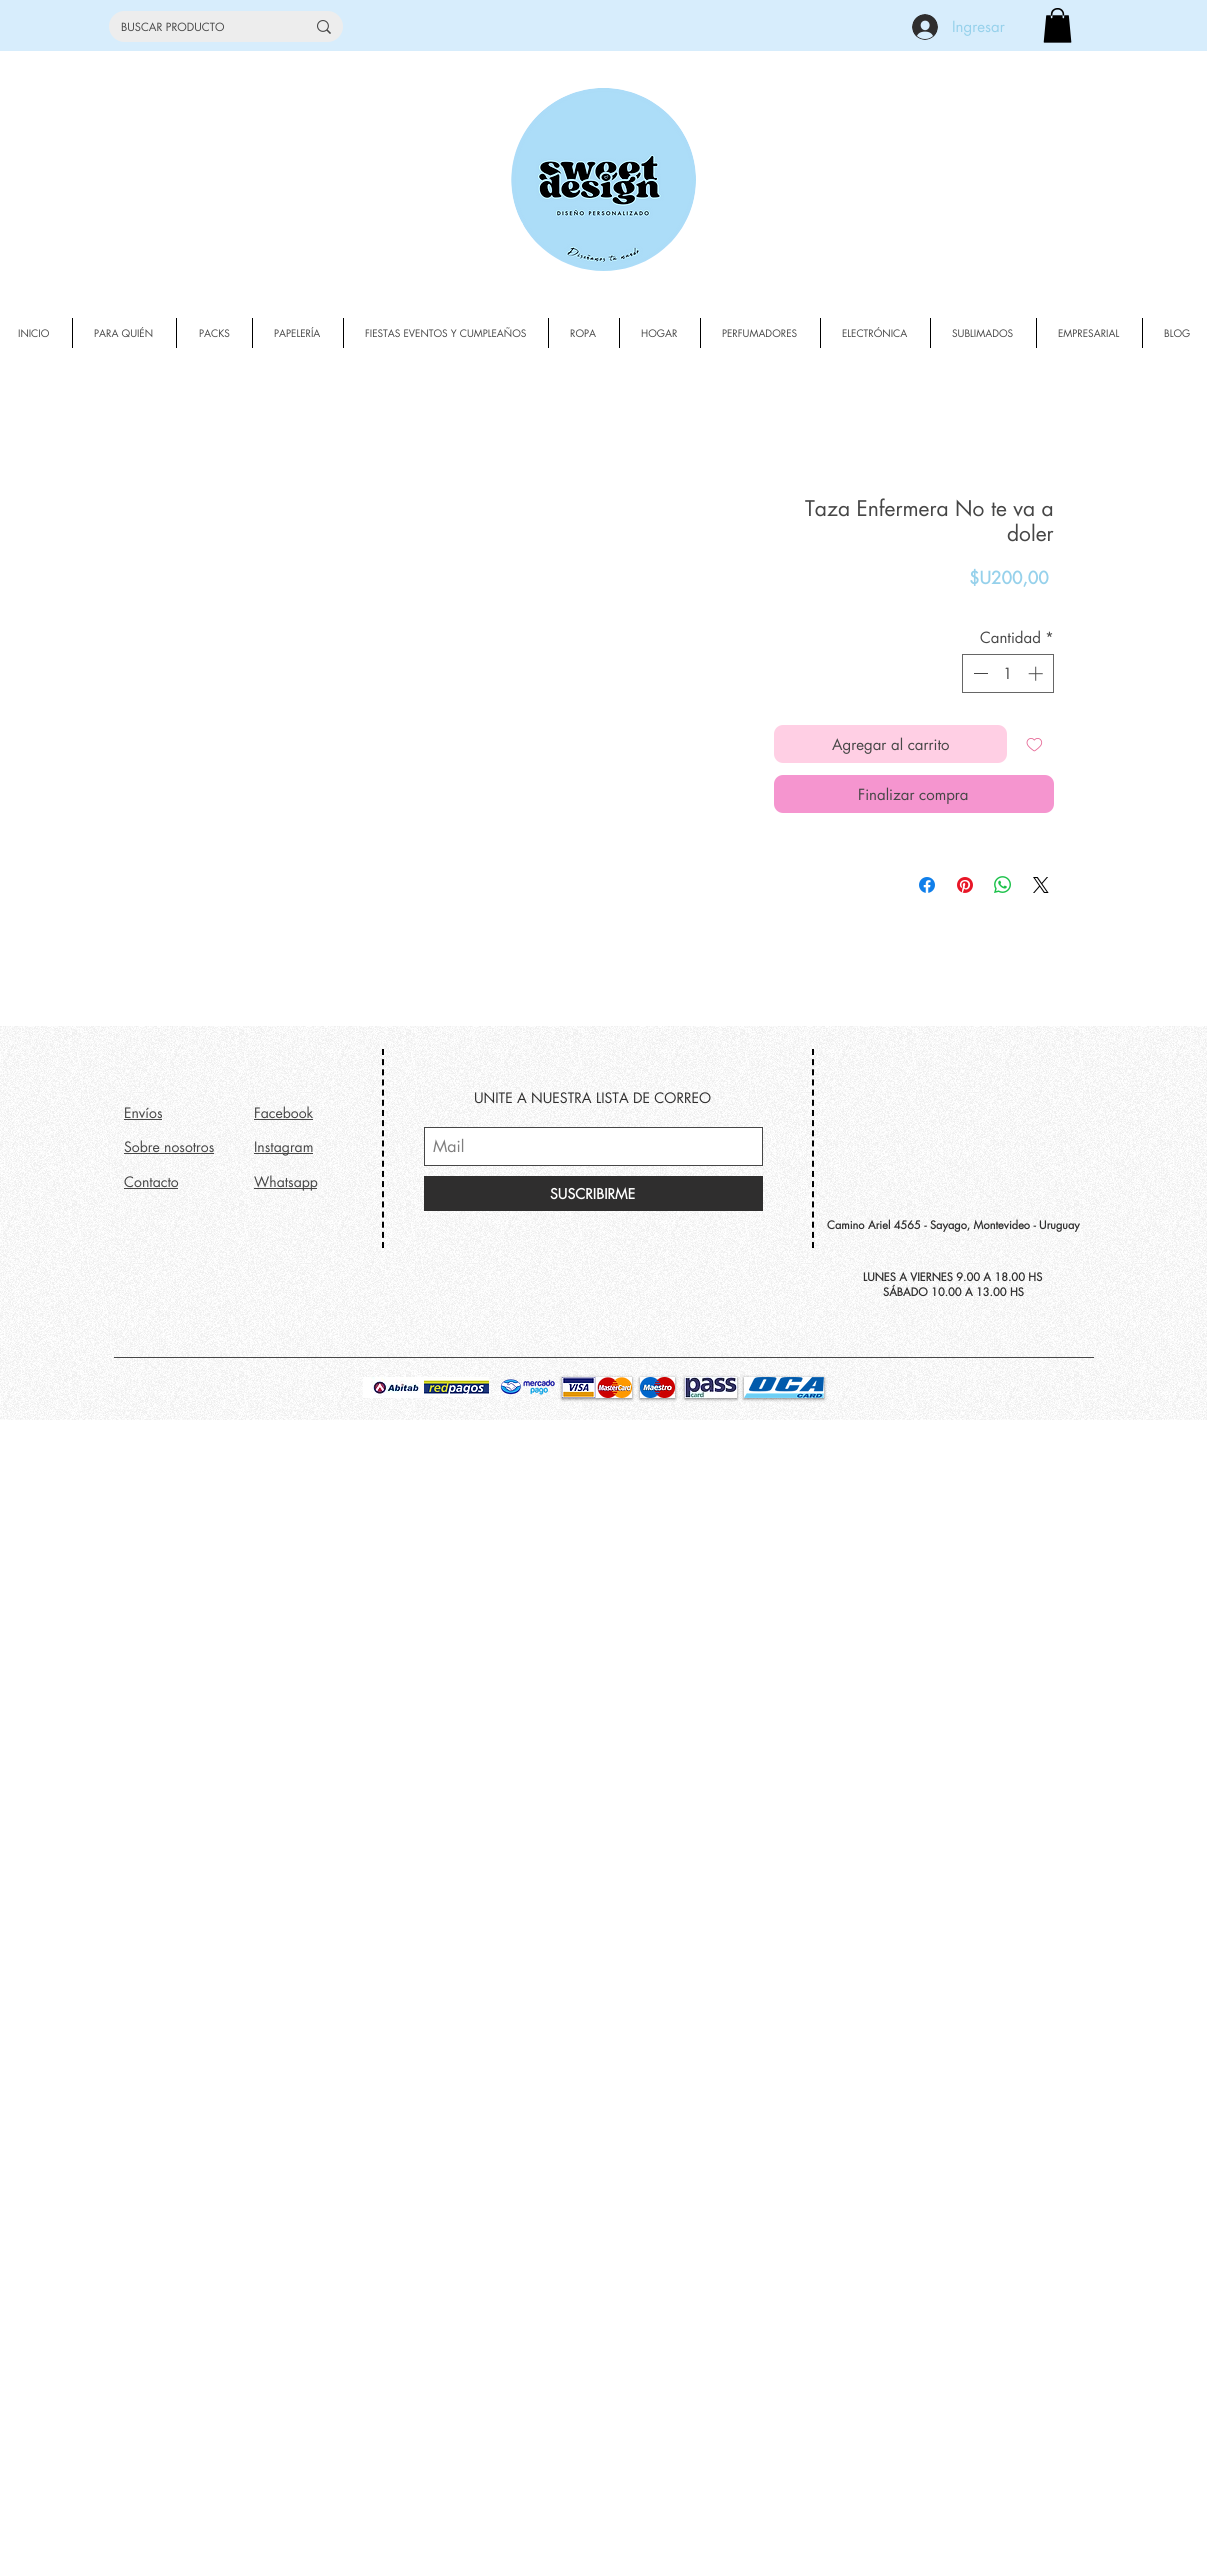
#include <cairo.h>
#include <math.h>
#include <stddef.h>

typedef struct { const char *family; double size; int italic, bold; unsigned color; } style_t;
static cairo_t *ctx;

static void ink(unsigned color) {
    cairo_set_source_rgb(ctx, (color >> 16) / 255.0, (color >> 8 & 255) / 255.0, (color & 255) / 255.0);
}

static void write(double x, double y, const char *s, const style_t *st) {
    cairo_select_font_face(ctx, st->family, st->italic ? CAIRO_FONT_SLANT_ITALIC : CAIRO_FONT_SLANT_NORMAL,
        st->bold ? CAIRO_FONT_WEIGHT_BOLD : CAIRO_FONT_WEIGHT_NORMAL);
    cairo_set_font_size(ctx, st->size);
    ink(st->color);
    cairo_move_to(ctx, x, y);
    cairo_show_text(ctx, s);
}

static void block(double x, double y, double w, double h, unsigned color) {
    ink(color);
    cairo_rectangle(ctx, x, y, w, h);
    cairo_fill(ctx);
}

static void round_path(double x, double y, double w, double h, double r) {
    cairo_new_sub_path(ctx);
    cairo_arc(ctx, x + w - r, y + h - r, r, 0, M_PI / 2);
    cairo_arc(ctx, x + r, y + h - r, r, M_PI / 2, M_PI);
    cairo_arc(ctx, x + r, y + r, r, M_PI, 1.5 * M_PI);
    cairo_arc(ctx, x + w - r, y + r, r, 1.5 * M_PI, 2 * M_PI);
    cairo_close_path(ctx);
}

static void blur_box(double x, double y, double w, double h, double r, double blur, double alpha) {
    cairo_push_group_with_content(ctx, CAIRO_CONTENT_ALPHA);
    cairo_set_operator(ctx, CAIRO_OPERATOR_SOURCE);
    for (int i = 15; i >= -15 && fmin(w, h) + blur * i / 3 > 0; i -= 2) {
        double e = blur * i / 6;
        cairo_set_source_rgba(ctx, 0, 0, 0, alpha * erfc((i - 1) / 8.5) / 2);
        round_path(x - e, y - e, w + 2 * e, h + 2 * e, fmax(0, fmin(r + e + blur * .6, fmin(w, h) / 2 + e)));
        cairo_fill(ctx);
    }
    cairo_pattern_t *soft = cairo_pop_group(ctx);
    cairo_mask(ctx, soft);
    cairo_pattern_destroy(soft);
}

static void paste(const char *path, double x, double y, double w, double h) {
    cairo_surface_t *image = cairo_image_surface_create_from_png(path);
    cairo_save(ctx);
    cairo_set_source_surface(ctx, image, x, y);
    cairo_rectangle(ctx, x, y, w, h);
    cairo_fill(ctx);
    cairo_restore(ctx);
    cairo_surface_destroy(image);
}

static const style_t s1 = {"futura", 11, 0, 0, 0x464646};
static const style_t s2 = {"futura", 15, 0, 0, 0x96d1eb};
static const style_t s3 = {"futura", 10, 0, 0, 0x464646};
static const style_t s4 = {"futura", 21, 0, 0, 0x464646};
static const style_t s5 = {"futura", 17, 0, 1, 0x96d1eb};
static const style_t s6 = {"futura", 15, 0, 0, 0x464646};
static const style_t s7 = {"futura", 14, 0, 0, 0x464646};
static const style_t s8 = {"futura", 14, 0, 0, 0x2f2e2e};
static const style_t s9 = {"futura", 16, 0, 0, 0x7f7e7e};
static const style_t s10 = {"futura", 14, 0, 1, 0xffffff};
static const style_t s11 = {"futura", 11, 0, 1, 0x2f2e2e};

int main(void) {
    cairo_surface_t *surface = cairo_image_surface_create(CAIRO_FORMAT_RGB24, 1207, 2563);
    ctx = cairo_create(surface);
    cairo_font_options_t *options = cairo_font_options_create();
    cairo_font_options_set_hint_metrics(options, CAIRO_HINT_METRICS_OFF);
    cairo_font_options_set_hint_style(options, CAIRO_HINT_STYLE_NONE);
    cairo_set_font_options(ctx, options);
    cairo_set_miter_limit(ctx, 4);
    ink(0xffffff);
    cairo_paint(ctx);
    block(0, 0, 1207, 51, 0xd7edfc);
    ink(0xededed);
    round_path(109, 11, 234, 31, 15.5);
    cairo_fill(ctx);
    write(121, 31, "BUSCAR PRODUCTO", &s1);
    paste("pic1.png", 317, 20, 14, 14);
    paste("pic2.png", 912, 14, 26, 26);
    write(952, 32, "Ingresar", &s2);
    paste("pic3.png", 1043, 8, 29, 35);
    paste("pic4.png", 511, 88, 185, 183);
    write(18, 337, "INICIO", &s3);
    block(72, 318, 1, 30, 0x000000);
    write(94, 337, "PARA QUIÉN", &s3);
    block(176, 318, 1, 30, 0x000000);
    write(199, 337, "PACKS", &s3);
    block(252, 318, 1, 30, 0x000000);
    write(274, 337, "PAPELERÍA", &s3);
    block(343, 318, 1, 30, 0x000000);
    write(365, 337, "FIESTAS EVENTOS Y CUMPLEAÑOS", &s3);
    block(548, 318, 1, 30, 0x000000);
    write(570, 337, "ROPA", &s3);
    block(619, 318, 1, 30, 0x000000);
    write(641, 337, "HOGAR", &s3);
    block(700, 318, 1, 30, 0x000000);
    write(722, 337, "PERFUMADORES", &s3);
    block(820, 318, 1, 30, 0x000000);
    write(842, 337, "ELECTRÓNICA", &s3);
    block(930, 318, 1, 30, 0x000000);
    write(952, 337, "SUBLIMADOS", &s3);
    block(1036, 318, 1, 30, 0x000000);
    write(1058, 337, "EMPRESARIAL", &s3);
    block(1142, 318, 1, 30, 0x000000);
    write(1164, 337, "BLOG", &s3);
    write(805, 516, "Taza Enfermera No te va a", &s4);
    write(1007, 541, "doler", &s4);
    write(969, 584, "$U200,00", &s5);
    write(980, 643, "Cantidad", &s6);
    write(1045, 643, "*", &s6);
    cairo_rectangle(ctx, 962.5, 654.5, 91, 38);
    ink(0x666666);
    cairo_set_line_width(ctx, 1);
    cairo_stroke(ctx);
    block(974, 673, 14, 1, 0x464646);
    write(1003, 679, "1", &s6);
    paste("pic5.png", 1028, 666, 15, 15);
    ink(0xffcfe4);
    round_path(774, 725, 233, 38, 9);
    cairo_fill(ctx);
    write(832, 750, "Agregar al carrito", &s6);
    paste("pic6.png", 1026, 738, 17, 14);
    ink(0xf595cf);
    round_path(774, 775, 280, 38, 9);
    cairo_fill(ctx);
    write(858, 800, "Finalizar compra", &s6);
    paste("pic7.png", 919, 877, 16, 16);
    paste("pic8.png", 957, 877, 16, 16);
    paste("pic9.png", 994, 876, 17, 17);
    paste("pic10.png", 1033, 877, 16, 16);
    paste("pic11.png", 0, 1026, 1207, 394);
    write(124, 1118, "Envíos", &s7);
    block(124, 1119, 38, 1, 0x464646);
    write(124, 1152, "Sobre nosotros", &s7);
    block(124, 1153, 90, 1, 0x464646);
    write(124, 1187, "Contacto", &s7);
    block(124, 1188, 54, 1, 0x464646);
    write(254, 1118, "Facebook", &s7);
    block(254, 1119, 59, 1, 0x464646);
    block(254, 1153, 59, 1, 0x464646);
    write(254, 1152, "Instagram", &s7);
    block(254, 1188, 63, 1, 0x464646);
    write(254, 1187, "Whatsapp", &s7);
    cairo_new_path(ctx);
    cairo_move_to(ctx, 383, 1049);
    cairo_line_to(ctx, 383, 1248);
    ink(0x000000);
    cairo_set_line_width(ctx, 2);
    cairo_set_dash(ctx, (double[]){6, 4.16}, 2, 0);
    cairo_stroke(ctx);
    write(474, 1103, "UNITE A NUESTRA LISTA DE CORREO", &s8);
    ink(0xffffff);
    cairo_rectangle(ctx, 424.5, 1127.5, 338, 38);
    cairo_fill_preserve(ctx);
    ink(0x464646);
    cairo_set_line_width(ctx, 1);
    cairo_set_dash(ctx, NULL, 0, 0);
    cairo_stroke(ctx);
    write(433, 1152, "Mail", &s9);
    block(424, 1176, 339, 35, 0x2f2e2e);
    write(550, 1199, "SUSCRIBIRME", &s10);
    cairo_new_path(ctx);
    cairo_move_to(ctx, 813, 1049);
    cairo_line_to(ctx, 813, 1248);
    ink(0x000000);
    cairo_set_line_width(ctx, 2);
    cairo_set_dash(ctx, (double[]){6, 4.16}, 2, 0);
    cairo_stroke(ctx);
    write(827, 1229, "Camino Ariel 4565 - Sayago, Montevideo - Uruguay", &s11);
    write(863, 1281, "LUNES A VIERNES 9.00 A 18.00 HS", &s11);
    write(883, 1296, "SÁBADO 10.00 A 13.00 HS", &s11);
    block(114, 1357, 980, 1, 0x464646);
    paste("pic12.png", 363, 1377, 66, 21);
    paste("pic13.png", 424, 1377, 65, 20);
    paste("pic14.png", 500, 1379, 55, 16);
    ink(0x000000);
    blur_box(562, 1378, 70, 21, 0, 1.5, 0.5);
    block(562, 1377, 70, 21, 0xffffff);
    paste("pic15.png", 562, 1377, 70, 21);
    ink(0x000000);
    blur_box(640, 1378, 35, 21, 0, 1.5, 0.5);
    block(640, 1377, 35, 21, 0xffffff);
    paste("pic16.png", 640, 1377, 35, 21);
    ink(0x000000);
    blur_box(685, 1378, 52, 21, 0, 1.5, 0.5);
    paste("pic17.png", 685, 1377, 52, 21);
    blur_box(744, 1378, 80, 21, 0, 1.5, 0.5);
    block(744, 1377, 80, 21, 0xffffff);
    paste("pic18.png", 744, 1377, 80, 21);
    cairo_surface_write_to_png(surface, "screenshot.png");
    cairo_font_options_destroy(options);
    cairo_destroy(ctx);
    cairo_surface_destroy(surface);
    return 0;
}
